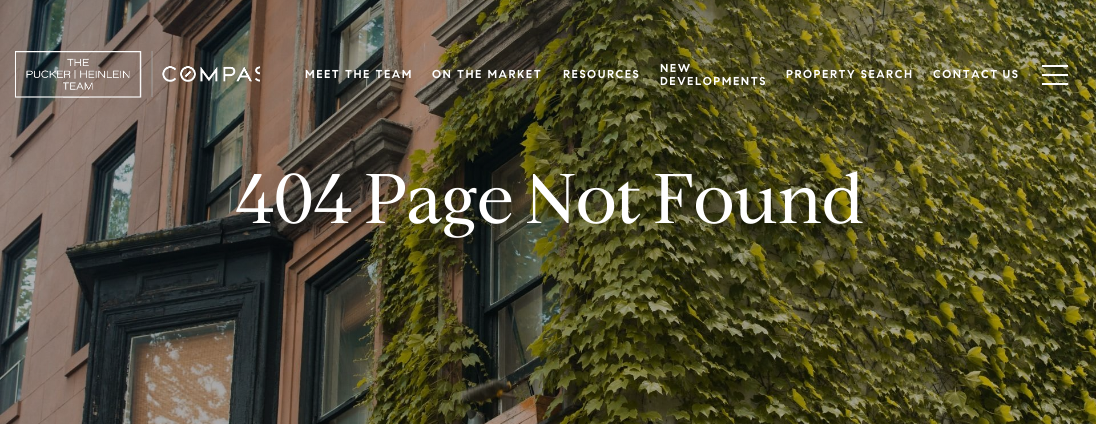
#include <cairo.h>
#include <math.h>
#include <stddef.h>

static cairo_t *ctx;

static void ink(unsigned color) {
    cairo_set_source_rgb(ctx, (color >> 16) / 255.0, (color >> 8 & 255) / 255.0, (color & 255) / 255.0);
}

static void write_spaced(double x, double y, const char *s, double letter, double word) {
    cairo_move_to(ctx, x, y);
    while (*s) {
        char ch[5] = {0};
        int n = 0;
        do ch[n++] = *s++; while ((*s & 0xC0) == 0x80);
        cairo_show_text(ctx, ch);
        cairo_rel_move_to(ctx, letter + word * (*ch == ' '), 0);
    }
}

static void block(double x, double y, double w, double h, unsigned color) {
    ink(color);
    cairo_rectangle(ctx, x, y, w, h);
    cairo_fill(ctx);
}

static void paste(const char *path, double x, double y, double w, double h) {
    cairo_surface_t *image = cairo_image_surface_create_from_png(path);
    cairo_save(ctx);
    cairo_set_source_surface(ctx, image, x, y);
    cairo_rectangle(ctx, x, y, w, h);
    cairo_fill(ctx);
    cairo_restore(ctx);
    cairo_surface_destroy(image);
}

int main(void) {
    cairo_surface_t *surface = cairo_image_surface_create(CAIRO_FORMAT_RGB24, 1096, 424);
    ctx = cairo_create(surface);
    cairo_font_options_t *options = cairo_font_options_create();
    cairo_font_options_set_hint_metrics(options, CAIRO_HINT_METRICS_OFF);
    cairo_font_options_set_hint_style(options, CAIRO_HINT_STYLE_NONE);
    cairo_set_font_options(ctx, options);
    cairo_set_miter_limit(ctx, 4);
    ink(0xffffff);
    cairo_paint(ctx);
    paste("pic2.png", 0, 0, 1096, 424);
    paste("pic1.png", 15, 51, 245, 47);
    cairo_select_font_face(ctx, "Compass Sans", CAIRO_FONT_SLANT_NORMAL, CAIRO_FONT_WEIGHT_BOLD);
    cairo_set_font_size(ctx, 11.5);
    ink(0xffffff);
    write_spaced(305, 78, "MEET THE TEAM", 1.5, 0);
    write_spaced(432, 78, "ON THE MARKET", 1.5, 0);
    write_spaced(563, 78, "RESOURCES", 1.5, 0);
    write_spaced(660, 72, "NEW", 1.5, 0);
    write_spaced(660, 85, "DEVELOPMENTS", 1.5, 0);
    write_spaced(786, 78, "PROPERTY SEARCH", 1.5, 0);
    write_spaced(933, 78, "CONTACT US", 1.5, -1);
    block(1042, 74, 26, 2, 0xffffff);
    block(1042, 65, 26, 2, 0xffffff);
    block(1042, 83, 26, 2, 0xffffff);
    cairo_select_font_face(ctx, "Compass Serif", CAIRO_FONT_SLANT_NORMAL, CAIRO_FONT_WEIGHT_NORMAL);
    cairo_set_font_size(ctx, 70);
    write_spaced(235, 223, "404 Page Not Found", 0, -4);
    cairo_surface_write_to_png(surface, "screenshot.png");
    cairo_font_options_destroy(options);
    cairo_destroy(ctx);
    cairo_surface_destroy(surface);
    return 0;
}
